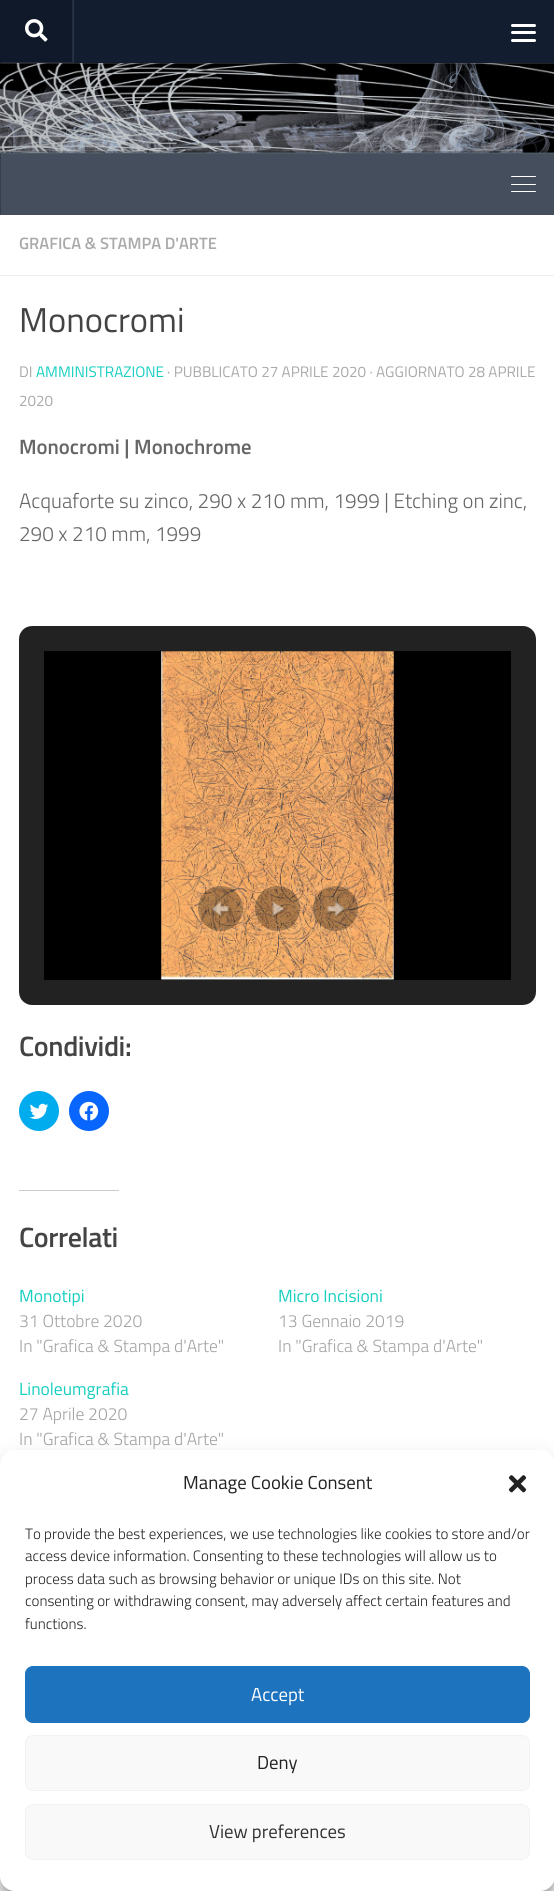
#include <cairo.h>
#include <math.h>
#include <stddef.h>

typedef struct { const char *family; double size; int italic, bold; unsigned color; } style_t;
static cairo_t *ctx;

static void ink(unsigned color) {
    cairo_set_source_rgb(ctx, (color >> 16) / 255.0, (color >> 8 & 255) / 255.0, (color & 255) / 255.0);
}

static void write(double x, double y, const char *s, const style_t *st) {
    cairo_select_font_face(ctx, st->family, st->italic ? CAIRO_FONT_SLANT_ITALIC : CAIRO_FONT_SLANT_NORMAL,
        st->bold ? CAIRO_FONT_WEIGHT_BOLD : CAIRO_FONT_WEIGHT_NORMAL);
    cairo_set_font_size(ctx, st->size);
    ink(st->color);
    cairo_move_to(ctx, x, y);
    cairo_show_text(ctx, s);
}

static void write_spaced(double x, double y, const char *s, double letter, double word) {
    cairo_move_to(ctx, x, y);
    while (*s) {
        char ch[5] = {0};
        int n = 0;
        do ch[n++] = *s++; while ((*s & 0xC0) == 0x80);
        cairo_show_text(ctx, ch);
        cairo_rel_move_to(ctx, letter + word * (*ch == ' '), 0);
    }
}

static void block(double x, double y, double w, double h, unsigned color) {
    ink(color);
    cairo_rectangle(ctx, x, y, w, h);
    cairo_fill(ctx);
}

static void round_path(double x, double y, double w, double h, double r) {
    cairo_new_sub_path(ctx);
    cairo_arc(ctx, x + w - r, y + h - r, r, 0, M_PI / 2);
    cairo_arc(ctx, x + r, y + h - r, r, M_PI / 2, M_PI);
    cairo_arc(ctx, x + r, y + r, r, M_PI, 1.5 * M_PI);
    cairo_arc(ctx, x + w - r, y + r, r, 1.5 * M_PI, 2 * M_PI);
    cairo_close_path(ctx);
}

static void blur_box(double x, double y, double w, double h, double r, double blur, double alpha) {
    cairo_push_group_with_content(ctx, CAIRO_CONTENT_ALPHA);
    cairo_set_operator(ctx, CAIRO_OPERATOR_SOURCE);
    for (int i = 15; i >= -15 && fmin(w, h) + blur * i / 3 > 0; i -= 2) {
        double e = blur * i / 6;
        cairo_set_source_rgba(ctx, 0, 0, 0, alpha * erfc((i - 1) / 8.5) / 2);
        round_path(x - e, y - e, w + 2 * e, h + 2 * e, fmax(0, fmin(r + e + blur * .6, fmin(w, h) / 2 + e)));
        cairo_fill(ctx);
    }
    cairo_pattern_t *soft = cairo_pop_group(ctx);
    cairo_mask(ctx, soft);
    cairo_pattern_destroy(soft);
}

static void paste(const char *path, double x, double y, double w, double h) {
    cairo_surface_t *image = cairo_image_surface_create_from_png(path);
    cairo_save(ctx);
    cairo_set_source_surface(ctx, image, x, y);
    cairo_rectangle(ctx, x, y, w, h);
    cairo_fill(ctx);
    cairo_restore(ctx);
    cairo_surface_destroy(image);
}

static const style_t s1 = {"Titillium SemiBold", 16.5, 0, 0, 0xaaaaaa};
static const style_t s2 = {"Titillium", 34.5, 0, 0, 0x444444};
static const style_t s3 = {"Titillium", 15.25, 0, 0, 0xaaaaaa};
static const style_t s4 = {"Titillium", 15.25, 0, 0, 0x16cfc1};
static const style_t s5 = {"Titillium SemiBold", 20.7, 0, 0, 0x666666};
static const style_t s6 = {"Titillium Light", 20.7, 0, 0, 0x666666};
static const style_t s7 = {"Titillium", 17.5, 0, 0, 0x16cfc1};
static const style_t s8 = {"Titillium Light", 17.5, 0, 0, 0xa3a3a3};
static const style_t s9 = {"Titillium", 18.75, 0, 0, 0x222222};
static const style_t s10 = {"Titillium Light", 15, 0, 0, 0x222222};
static const style_t s11 = {"Titillium", 18.75, 0, 0, 0xffffff};
static const style_t s12 = {"Titillium", 18.75, 0, 0, 0x333333};

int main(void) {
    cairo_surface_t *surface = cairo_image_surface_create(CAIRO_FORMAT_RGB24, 554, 1891);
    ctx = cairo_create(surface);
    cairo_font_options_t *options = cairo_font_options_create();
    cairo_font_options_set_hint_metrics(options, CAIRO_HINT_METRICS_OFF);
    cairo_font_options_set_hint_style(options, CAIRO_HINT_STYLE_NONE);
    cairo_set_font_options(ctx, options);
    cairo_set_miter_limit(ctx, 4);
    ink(0xffffff);
    cairo_paint(ctx);
    block(0, 152, 554, 63, 0x454e5c);
    block(0, 153, 554, 1, 0x4e5764);
    paste("pic2.png", 0, 63, 554, 90);
    cairo_set_source_rgba(ctx, 1, 1, 1, 0.15);
    cairo_rectangle(ctx, 0, 63, 554, 1);
    cairo_fill(ctx);
    ink(0x000000);
    blur_box(0, 0, 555, 63, 0, 3, 0.2);
    block(0, 0, 554, 63, 0x121d30);
    ink(0x2a3445);
    cairo_new_path(ctx);
    cairo_move_to(ctx, 1, 62);
    cairo_line_to(ctx, 1, 63);
    cairo_line_to(ctx, 74, 63);
    cairo_line_to(ctx, 74, 0);
    cairo_line_to(ctx, 72, 0);
    cairo_line_to(ctx, 72, 62);
    cairo_close_path(ctx);
    cairo_fill(ctx);
    cairo_set_source_rgba(ctx, 0, 0, 0, 0.15);
    cairo_rectangle(ctx, 0, 0, 73, 63);
    cairo_fill(ctx);
    paste("pic1.png", 25, 19, 23, 23);
    ink(0xffffff);
    round_path(511, 24, 25, 3, 1.5);
    cairo_fill(ctx);
    round_path(511, 31, 25, 3, 1.5);
    cairo_fill(ctx);
    round_path(511, 39, 25, 3, 1.5);
    cairo_fill(ctx);
    cairo_set_source_rgba(ctx, 0, 0, 0, 0.2);
    cairo_rectangle(ctx, 0, 151, 554, 1);
    cairo_fill(ctx);
    block(0, 153, 1, 62, 0x373e4a);
    block(0, 153, 1, 1, 0x414853);
    ink(0xffffff);
    round_path(511, 176, 25, 1, 0.5);
    cairo_fill(ctx);
    round_path(511, 184, 25, 1, 0.5);
    cairo_fill(ctx);
    round_path(511, 191, 25, 1, 0.5);
    cairo_fill(ctx);
    block(0, 275, 554, 1, 0xeeeeee);
    write(19, 249, "GRAFICA & STAMPA D'ARTE", &s1);
    write(19, 332, "Monocromi", &s2);
    write(19, 377, "DI", &s3);
    write(36, 377, "AMMINISTRAZIONE", &s4);
    write(167, 377, "· PUBBLICATO 27 APRILE 2020 · AGGIORNATO 28 APRILE", &s3);
    write(19, 406, "2020", &s3);
    write(19, 454, "Monocromi | Monochrome", &s5);
    write(19, 508, "Acquaforte su zinco, 290 x 210 mm, 1999 | Etching on zinc,", &s6);
    write(19, 541, "290 x 210 mm, 1999", &s6);
    round_path(31.5, 638.5, 492, 354, 0.5);
    ink(0x222222);
    cairo_set_line_width(ctx, 25);
    cairo_stroke(ctx);
    block(44, 651, 467, 329, 0x000000);
    paste("pic3.png", 161, 651, 233, 329);
    cairo_set_source_rgba(ctx, 0, 0, 0, 0.3);
    cairo_arc(ctx, 220.5, 908.5, 22.5, 0, 2 * M_PI);
    cairo_fill(ctx);
    paste("pic4.png", 211, 901, 20, 17);
    cairo_rectangle(ctx, 199.5, 887.5, 42, 42);
    cairo_set_source_rgba(ctx, 1, 1, 1, 0.05);
    cairo_set_line_width(ctx, 3);
    cairo_stroke(ctx);
    cairo_set_source_rgba(ctx, 0, 0, 0, 0.3);
    cairo_arc(ctx, 277.5, 908.5, 22.5, 0, 2 * M_PI);
    cairo_fill(ctx);
    paste("pic5.png", 272, 901, 14, 17);
    cairo_rectangle(ctx, 256.5, 887.5, 42, 42);
    cairo_set_source_rgba(ctx, 1, 1, 1, 0.05);
    cairo_stroke(ctx);
    cairo_set_source_rgba(ctx, 0, 0, 0, 0.3);
    cairo_arc(ctx, 335.5, 908.5, 22.5, 0, 2 * M_PI);
    cairo_fill(ctx);
    paste("pic6.png", 327, 901, 19, 17);
    cairo_rectangle(ctx, 314.5, 887.5, 42, 42);
    cairo_set_source_rgba(ctx, 1, 1, 1, 0.05);
    cairo_stroke(ctx);
    cairo_select_font_face(ctx, "Titillium SemiBold", CAIRO_FONT_SLANT_NORMAL, CAIRO_FONT_WEIGHT_NORMAL);
    cairo_set_font_size(ctx, 28);
    ink(0x444444);
    write_spaced(19, 1056, "Condividi:", -0.4, 0);
    ink(0x00acee);
    cairo_new_path(ctx);
    cairo_arc(ctx, 39, 1111, 20, 0, 2 * M_PI);
    cairo_fill(ctx);
    paste("pic7.png", 29, 1103, 20, 16);
    ink(0x0866ff);
    cairo_arc(ctx, 89, 1111, 20, 0, 2 * M_PI);
    cairo_fill(ctx);
    paste("pic8.png", 79, 1101, 20, 20);
    block(19, 1190, 100, 1, 0xcccccc);
    ink(0x444444);
    write_spaced(19, 1247, "Correlati", -0.4, 0);
    write(19, 1302, "Monotipi", &s7);
    write(19, 1327, "31 Ottobre 2020", &s8);
    write(19, 1352, "In \"Grafica & Stampa d'Arte\"", &s8);
    write(278, 1302, "Micro Incisioni", &s7);
    write(278, 1327, "13 Gennaio 2019", &s8);
    write(278, 1352, "In \"Grafica & Stampa d'Arte\"", &s8);
    write(19, 1395, "Linoleumgrafia", &s7);
    write(19, 1420, "27 Aprile 2020", &s8);
    write(19, 1445, "In \"Grafica & Stampa d'Arte\"", &s8);
    ink(0x000000);
    blur_box(0, 1458, 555, 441, 15, 4, 0.23);
    blur_box(0, 1463, 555, 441, 15, 12.5, 0.19);
    ink(0xffffff);
    round_path(0, 1450, 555, 441, 15);
    cairo_fill(ctx);
    write(183, 1489, "Manage Cookie Consent", &s9);
    paste("pic9.png", 508, 1475, 19, 18);
    write(25, 1539, "To provide the best experiences, we use technologies like cookies to store and/or", &s10);
    write(25, 1561, "access device information. Consenting to these technologies will allow us to", &s10);
    write(25, 1584, "process data such as browsing behavior or unique IDs on this site. Not", &s10);
    write(25, 1606, "consenting or withdrawing consent, may adversely affect certain features and", &s10);
    write(25, 1629, "functions.", &s10);
    ink(0x1e73be);
    round_path(25.5, 1666.5, 504, 56, 7.5);
    cairo_fill_preserve(ctx);
    cairo_set_line_width(ctx, 1);
    cairo_stroke(ctx);
    write(251, 1701, "Accept", &s11);
    ink(0xf9f9f9);
    round_path(25.5, 1735.5, 504, 55, 7.5);
    cairo_fill_preserve(ctx);
    ink(0xf2f2f2);
    cairo_stroke(ctx);
    write(257, 1769, "Deny", &s9);
    ink(0xf9f9f9);
    round_path(25.5, 1804.5, 504, 55, 7.5);
    cairo_fill_preserve(ctx);
    ink(0xf2f2f2);
    cairo_stroke(ctx);
    write(209, 1838, "View preferences", &s12);
    cairo_surface_write_to_png(surface, "screenshot.png");
    cairo_font_options_destroy(options);
    cairo_destroy(ctx);
    cairo_surface_destroy(surface);
    return 0;
}
